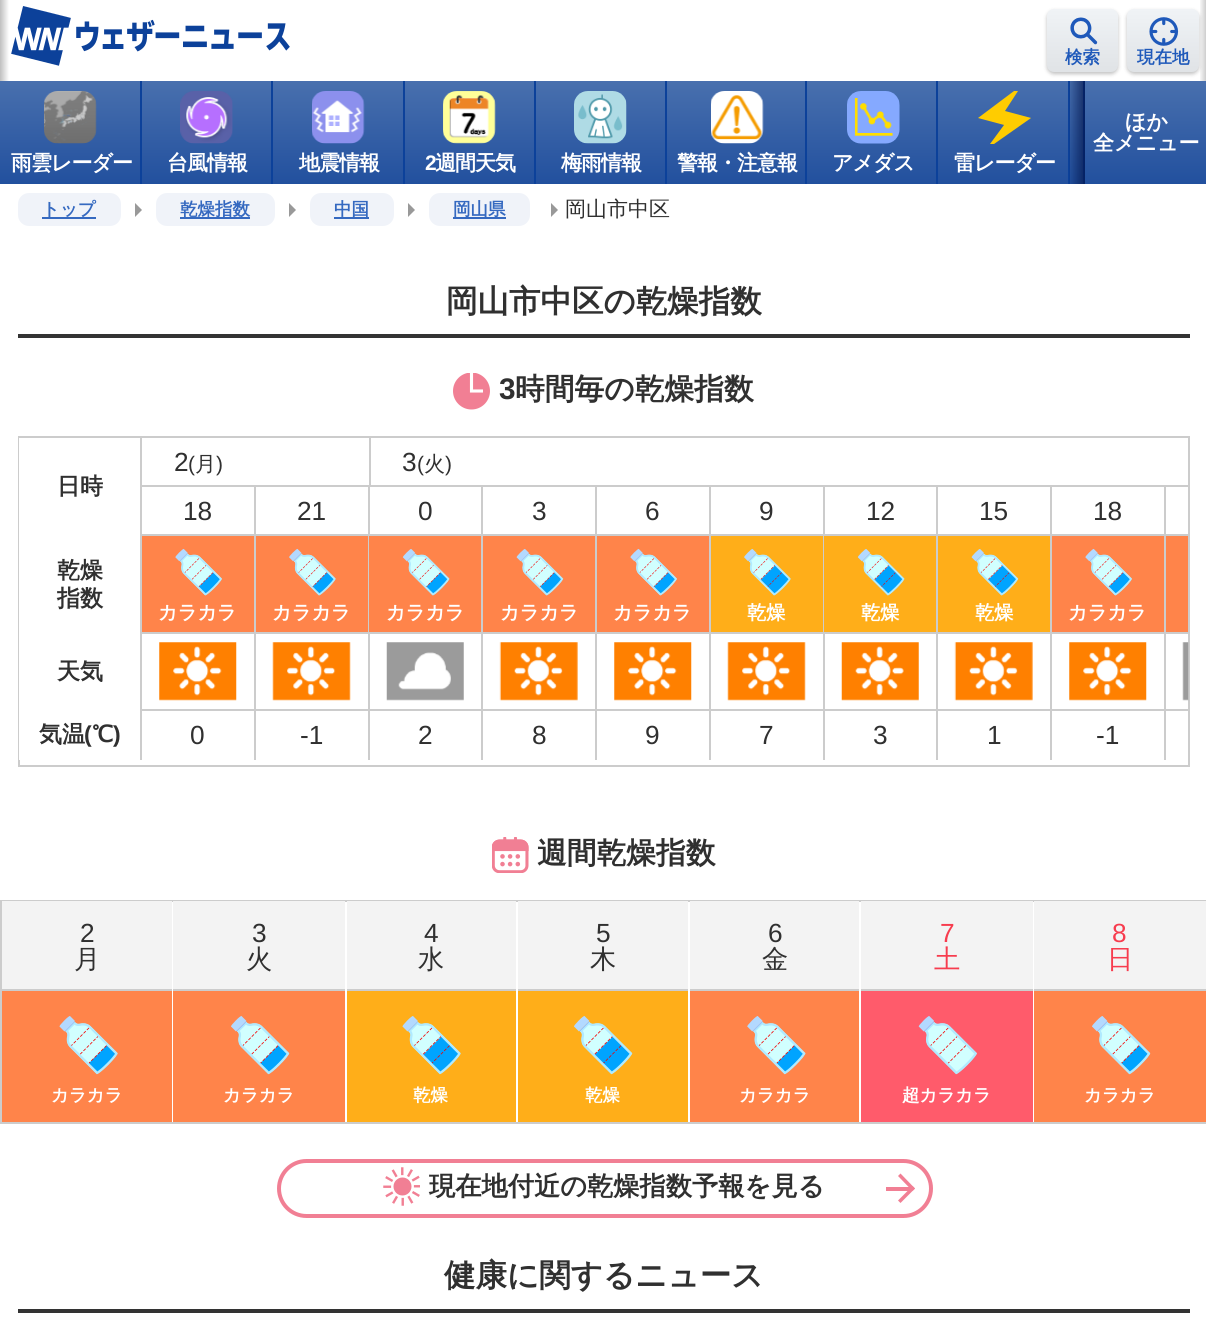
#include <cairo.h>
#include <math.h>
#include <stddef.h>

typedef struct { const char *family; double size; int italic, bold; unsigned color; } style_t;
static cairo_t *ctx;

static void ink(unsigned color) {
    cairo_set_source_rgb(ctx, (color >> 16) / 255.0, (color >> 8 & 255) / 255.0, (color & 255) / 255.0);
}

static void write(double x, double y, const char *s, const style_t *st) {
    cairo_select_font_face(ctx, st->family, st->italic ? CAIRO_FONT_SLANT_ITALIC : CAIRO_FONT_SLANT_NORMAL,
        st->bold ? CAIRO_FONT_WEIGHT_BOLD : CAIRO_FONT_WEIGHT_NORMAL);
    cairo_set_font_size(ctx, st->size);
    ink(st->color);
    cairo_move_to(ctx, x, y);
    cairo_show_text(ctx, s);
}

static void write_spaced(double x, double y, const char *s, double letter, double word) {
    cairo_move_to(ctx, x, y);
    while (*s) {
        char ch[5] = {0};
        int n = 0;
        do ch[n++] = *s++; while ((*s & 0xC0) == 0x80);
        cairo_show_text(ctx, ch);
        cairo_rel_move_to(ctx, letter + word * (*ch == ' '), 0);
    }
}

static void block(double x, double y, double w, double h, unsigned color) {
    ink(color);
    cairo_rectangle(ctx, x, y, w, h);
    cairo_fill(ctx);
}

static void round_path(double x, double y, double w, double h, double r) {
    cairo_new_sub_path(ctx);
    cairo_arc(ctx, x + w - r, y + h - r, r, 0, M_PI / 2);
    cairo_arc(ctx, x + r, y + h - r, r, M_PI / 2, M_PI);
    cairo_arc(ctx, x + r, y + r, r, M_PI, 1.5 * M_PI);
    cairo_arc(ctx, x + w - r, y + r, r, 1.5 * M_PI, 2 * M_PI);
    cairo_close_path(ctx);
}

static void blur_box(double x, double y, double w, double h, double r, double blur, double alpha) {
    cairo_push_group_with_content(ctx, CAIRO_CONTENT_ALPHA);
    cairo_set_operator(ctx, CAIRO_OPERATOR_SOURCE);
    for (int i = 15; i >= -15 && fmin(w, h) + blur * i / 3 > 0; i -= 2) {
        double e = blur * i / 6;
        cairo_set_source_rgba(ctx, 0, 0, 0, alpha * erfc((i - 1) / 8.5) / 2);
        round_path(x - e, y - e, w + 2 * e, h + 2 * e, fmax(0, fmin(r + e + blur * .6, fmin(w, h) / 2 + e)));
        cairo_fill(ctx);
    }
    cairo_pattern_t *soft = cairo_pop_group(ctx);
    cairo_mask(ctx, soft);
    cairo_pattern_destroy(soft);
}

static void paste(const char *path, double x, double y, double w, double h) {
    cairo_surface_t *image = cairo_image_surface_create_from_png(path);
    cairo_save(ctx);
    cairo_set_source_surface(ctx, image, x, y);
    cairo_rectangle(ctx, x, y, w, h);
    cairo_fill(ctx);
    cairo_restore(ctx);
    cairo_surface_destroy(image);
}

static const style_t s1 = {"WenQuanYi Zen Hei", 17.5, 0, 1, 0x1f59ba};
static const style_t s2 = {"WenQuanYi Zen Hei", 21, 0, 1, 0xffffff};
static const style_t s3 = {"WenQuanYi Zen Hei", 17.5, 0, 1, 0x3569c0};
static const style_t s4 = {"WenQuanYi Zen Hei Medium", 21, 0, 0, 0x303030};
static const style_t s5 = {"WenQuanYi Zen Hei", 31.5, 0, 1, 0x303030};
static const style_t s6 = {"Liberation Sans", 29.75, 0, 1, 0x303030};
static const style_t s7 = {"WenQuanYi Zen Hei", 29.75, 0, 1, 0x303030};
static const style_t s8 = {"WenQuanYi Zen Hei", 23, 0, 1, 0x303030};
static const style_t s9 = {"Liberation Sans", 23, 0, 1, 0x303030};
static const style_t s10 = {"Liberation Sans", 26.25, 0, 0, 0x303030};
static const style_t s11 = {"Liberation Sans", 21, 0, 0, 0x303030};
static const style_t s12 = {"WenQuanYi Zen Hei", 19.25, 0, 1, 0xffffff};
static const style_t s13 = {"WenQuanYi Zen Hei Medium", 26.25, 0, 0, 0x303030};
static const style_t s14 = {"WenQuanYi Zen Hei", 17.5, 0, 1, 0xffffff};
static const style_t s15 = {"Liberation Sans", 26.25, 0, 0, 0xf73c4e};
static const style_t s16 = {"WenQuanYi Zen Hei Medium", 26.25, 0, 0, 0xf73c4e};
static const style_t s17 = {"WenQuanYi Zen Hei", 26.25, 0, 1, 0x303030};

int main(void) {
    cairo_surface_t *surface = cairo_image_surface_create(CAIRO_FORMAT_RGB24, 1206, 1317);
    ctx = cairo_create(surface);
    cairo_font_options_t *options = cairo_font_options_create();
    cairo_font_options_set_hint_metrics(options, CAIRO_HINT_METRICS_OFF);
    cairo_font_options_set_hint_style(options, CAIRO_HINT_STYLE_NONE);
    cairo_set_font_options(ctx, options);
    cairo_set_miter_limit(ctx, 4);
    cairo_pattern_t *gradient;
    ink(0xffffff);
    cairo_paint(ctx);
    gradient = cairo_pattern_create_linear(0, 40, 9, 40);
    cairo_pattern_add_color_stop_rgba(gradient, 0, 0.749, 0.749, 0.749, 1);
    cairo_pattern_add_color_stop_rgba(gradient, 1, 1, 1, 1, 1);
    cairo_set_source(ctx, gradient);
    cairo_pattern_destroy(gradient);
    cairo_rectangle(ctx, 0, 0, 9, 81);
    cairo_fill(ctx);
    ink(0x000000);
    blur_box(1127, 11, 72, 63, 7, 2, 0.25);
    gradient = cairo_pattern_create_linear(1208, 40, 1199, 40);
    cairo_pattern_add_color_stop_rgba(gradient, 0, 0, 0, 0, 0.25);
    cairo_pattern_add_color_stop_rgba(gradient, 1, 0, 0, 0, 0);
    cairo_set_source(ctx, gradient);
    cairo_pattern_destroy(gradient);
    cairo_rectangle(ctx, 1200, 0, 6, 81);
    cairo_fill(ctx);
    paste("pic1.png", 11, 6, 279, 60);
    ink(0x000000);
    blur_box(1047, 11, 71, 63, 7, 2, 0.25);
    gradient = cairo_pattern_create_linear(1082, 9, 1082, 72);
    cairo_pattern_add_color_stop_rgba(gradient, 0, 0.941, 0.953, 0.965, 1);
    cairo_pattern_add_color_stop_rgba(gradient, 1, 0.878, 0.89, 0.902, 1);
    cairo_set_source(ctx, gradient);
    cairo_pattern_destroy(gradient);
    round_path(1047, 9, 71, 63, 7);
    cairo_fill(ctx);
    paste("pic2.png", 1070, 17, 28, 28);
    write(1065, 63, "検索", &s1);
    gradient = cairo_pattern_create_linear(1163, 9, 1163, 72);
    cairo_pattern_add_color_stop_rgba(gradient, 0, 0.941, 0.953, 0.965, 1);
    cairo_pattern_add_color_stop_rgba(gradient, 1, 0.878, 0.89, 0.902, 1);
    cairo_set_source(ctx, gradient);
    cairo_pattern_destroy(gradient);
    round_path(1127, 9, 72, 63, 7);
    cairo_fill(ctx);
    paste("pic3.png", 1149, 17, 30, 29);
    write(1137, 63, "現在地", &s1);
    gradient = cairo_pattern_create_linear(604, 80, 604, 184);
    cairo_pattern_add_color_stop_rgba(gradient, 0, 0.286, 0.439, 0.682, 1);
    cairo_pattern_add_color_stop_rgba(gradient, 1, 0.133, 0.314, 0.62, 1);
    cairo_set_source(ctx, gradient);
    cairo_pattern_destroy(gradient);
    cairo_rectangle(ctx, 0, 81, 1206, 103);
    cairo_fill(ctx);
    write(1125, 129, "ほか", &s2);
    write(1093, 150, "全メニュー", &s2);
    block(1083, 81, 2, 103, 0x0c419a);
    paste("pic4.png", 44, 91, 53, 53);
    ink(0xffffff);
    write_spaced(11, 170, "雨雲レーダー", -1, 0);
    block(140, 81, 2, 103, 0x0c419a);
    paste("pic5.png", 180, 91, 53, 53);
    ink(0xffffff);
    write_spaced(167, 170, "台風情報", -1, 0);
    block(271, 81, 2, 103, 0x0c419a);
    paste("pic6.png", 312, 91, 53, 53);
    ink(0xffffff);
    write_spaced(299, 170, "地震情報", -1, 0);
    block(403, 81, 2, 103, 0x0c419a);
    paste("pic7.png", 443, 91, 53, 53);
    cairo_select_font_face(ctx, "Liberation Sans", CAIRO_FONT_SLANT_NORMAL, CAIRO_FONT_WEIGHT_BOLD);
    ink(0xffffff);
    write_spaced(425, 170, "2", -1, 0);
    cairo_select_font_face(ctx, "WenQuanYi Zen Hei", CAIRO_FONT_SLANT_NORMAL, CAIRO_FONT_WEIGHT_BOLD);
    write_spaced(435, 170, "週間天気", -1, 0);
    block(534, 81, 2, 103, 0x0c419a);
    paste("pic8.png", 574, 91, 53, 53);
    ink(0xffffff);
    write_spaced(561, 170, "梅雨情報", -1, 0);
    block(665, 81, 2, 103, 0x0c419a);
    paste("pic9.png", 711, 91, 53, 53);
    ink(0xffffff);
    write_spaced(677, 170, "警報・注意報", -1, 0);
    block(805, 81, 2, 103, 0x0c419a);
    paste("pic10.png", 847, 91, 53, 53);
    ink(0xffffff);
    write_spaced(832, 170, "アメダス", -1, 0);
    block(936, 81, 2, 103, 0x0c419a);
    ink(0xffcc00);
    cairo_new_path(ctx);
    cairo_move_to(ctx, 1018, 91);
    cairo_line_to(ctx, 1014, 91);
    cairo_line_to(ctx, 978, 118);
    cairo_line_to(ctx, 1004, 125);
    cairo_line_to(ctx, 990, 144);
    cairo_line_to(ctx, 994, 144);
    cairo_line_to(ctx, 1031, 118);
    cairo_line_to(ctx, 1005, 111);
    cairo_close_path(ctx);
    cairo_fill(ctx);
    ink(0xffffff);
    write_spaced(954, 170, "雷レーダー", -1, 0);
    block(1068, 81, 2, 103, 0x0c419a);
    gradient = cairo_pattern_create_linear(1085, 132, 1068, 132);
    cairo_pattern_add_color_stop_rgba(gradient, 0, 0.004, 0.075, 0.286, 0.7);
    cairo_pattern_add_color_stop_rgba(gradient, 1, 0.004, 0.075, 0.286, 0);
    cairo_set_source(ctx, gradient);
    cairo_pattern_destroy(gradient);
    cairo_rectangle(ctx, 1069, 81, 16, 103);
    cairo_fill(ctx);
    ink(0xf0f3f9);
    round_path(18, 193, 103, 33, 11);
    cairo_fill(ctx);
    block(42, 217, 54, 2, 0x3569c0);
    write(42, 215, "トップ", &s3);
    ink(0x999999);
    cairo_new_path(ctx);
    cairo_move_to(ctx, 135, 217);
    cairo_line_to(ctx, 135, 203);
    cairo_line_to(ctx, 142, 210);
    cairo_close_path(ctx);
    cairo_fill(ctx);
    ink(0xf0f3f9);
    round_path(156, 193, 119, 33, 11);
    cairo_fill(ctx);
    block(180, 217, 70, 2, 0x3569c0);
    write(180, 215, "乾燥指数", &s3);
    ink(0x999999);
    cairo_new_path(ctx);
    cairo_move_to(ctx, 289, 217);
    cairo_line_to(ctx, 289, 203);
    cairo_line_to(ctx, 296, 210);
    cairo_close_path(ctx);
    cairo_fill(ctx);
    ink(0xf0f3f9);
    round_path(310, 193, 84, 33, 11);
    cairo_fill(ctx);
    block(334, 217, 35, 2, 0x3569c0);
    write(334, 215, "中国", &s3);
    ink(0x999999);
    cairo_new_path(ctx);
    cairo_move_to(ctx, 408, 217);
    cairo_line_to(ctx, 408, 203);
    cairo_line_to(ctx, 415, 210);
    cairo_close_path(ctx);
    cairo_fill(ctx);
    ink(0xf0f3f9);
    round_path(429, 193, 101, 33, 11);
    cairo_fill(ctx);
    block(453, 217, 53, 2, 0x3569c0);
    write(453, 215, "岡山県", &s3);
    ink(0x999999);
    cairo_new_path(ctx);
    cairo_move_to(ctx, 551, 217);
    cairo_line_to(ctx, 551, 203);
    cairo_line_to(ctx, 558, 210);
    cairo_close_path(ctx);
    cairo_fill(ctx);
    write(565, 216, "岡山市中区", &s4);
    block(18, 334, 1172, 4, 0x333333);
    write(446, 312, "岡山市中区の乾燥指数", &s5);
    cairo_save(ctx);
    cairo_rectangle(ctx, 453, 373, 37, 37);
    cairo_clip(ctx);
    ink(0xf17f94);
    cairo_arc(ctx, 471.5, 391, 18.5, 0, 2 * M_PI);
    cairo_fill(ctx);
    cairo_restore(ctx);
    cairo_new_path(ctx);
    cairo_move_to(ctx, 471.5, 373);
    cairo_line_to(ctx, 471.5, 391);
    cairo_line_to(ctx, 483, 391);
    ink(0xffffff);
    cairo_set_line_width(ctx, 3.1);
    cairo_stroke(ctx);
    write(499, 399, "3", &s6);
    write(515, 399, "時間毎の乾燥指数", &s7);
    cairo_rectangle(ctx, 19, 437, 1170, 329);
    ink(0xcccccc);
    cairo_set_line_width(ctx, 2);
    cairo_stroke(ctx);
    block(19, 438, 1, 322, 0xffffff);
    block(140, 438, 2, 322, 0xcccccc);
    write(57, 494, "日時", &s8);
    write(57, 578, "乾燥", &s8);
    write(57, 606, "指数", &s8);
    write(57, 679, "天気", &s8);
    write(39, 742, "気温", &s8);
    write(84, 742, "(", &s9);
    write(92, 742, "℃", &s8);
    write(113, 742, ")", &s9);
    block(142, 485, 1046, 2, 0xcccccc);
    write(174, 471, "2", &s10);
    write(188, 471, "(", &s11);
    write(195, 471, "月", &s4);
    write(216, 471, ")", &s11);
    block(254, 487, 2, 273, 0xcccccc);
    block(142, 534, 114, 2, 0xcccccc);
    write(183, 520, "18", &s10);
    block(142, 536, 112, 96, 0xff844a);
    block(142, 632, 114, 2, 0xcccccc);
    paste("pic11.png", 175, 548, 47, 48);
    write(158, 619, "カラカラ", &s12);
    block(142, 709, 114, 2, 0xcccccc);
    paste("pic12.png", 159, 642, 78, 59);
    write(190, 744, "0", &s10);
    block(368, 487, 2, 49, 0xcccccc);
    block(256, 534, 113, 2, 0xcccccc);
    write(297, 520, "21", &s10);
    block(256, 536, 112, 96, 0xff844a);
    block(368, 536, 1, 98, 0xcccccc);
    block(256, 632, 113, 2, 0xcccccc);
    paste("pic13.png", 289, 548, 47, 48);
    write(272, 619, "カラカラ", &s12);
    block(368, 634, 2, 126, 0xcccccc);
    block(256, 709, 113, 2, 0xcccccc);
    paste("pic14.png", 272, 642, 79, 59);
    write(300, 744, "-1", &s10);
    block(369, 438, 2, 49, 0xcccccc);
    write(402, 471, "3", &s10);
    write(417, 471, "(", &s11);
    write(424, 471, "火", &s4);
    write(445, 471, ")", &s11);
    block(481, 487, 2, 273, 0xcccccc);
    block(369, 534, 114, 2, 0xcccccc);
    write(418, 520, "0", &s10);
    block(369, 536, 112, 96, 0xff844a);
    block(369, 632, 114, 2, 0xcccccc);
    paste("pic15.png", 402, 549, 48, 47);
    write(386, 619, "カラカラ", &s12);
    block(369, 709, 114, 2, 0xcccccc);
    paste("pic16.png", 386, 642, 78, 59);
    write(418, 744, "2", &s10);
    block(595, 487, 2, 273, 0xcccccc);
    block(483, 534, 114, 2, 0xcccccc);
    write(532, 520, "3", &s10);
    block(483, 536, 112, 96, 0xff844a);
    block(483, 632, 114, 2, 0xcccccc);
    paste("pic17.png", 516, 549, 48, 47);
    write(500, 619, "カラカラ", &s12);
    block(483, 709, 114, 2, 0xcccccc);
    paste("pic18.png", 499, 642, 79, 59);
    write(532, 744, "8", &s10);
    block(709, 487, 2, 273, 0xcccccc);
    block(597, 534, 114, 2, 0xcccccc);
    write(645, 520, "6", &s10);
    block(597, 536, 112, 96, 0xff844a);
    block(597, 632, 114, 2, 0xcccccc);
    paste("pic11.png", 630, 548, 47, 48);
    write(613, 619, "カラカラ", &s12);
    block(597, 709, 114, 2, 0xcccccc);
    paste("pic12.png", 614, 642, 78, 59);
    write(645, 744, "9", &s10);
    block(823, 487, 2, 49, 0xcccccc);
    block(711, 534, 113, 2, 0xcccccc);
    write(759, 520, "9", &s10);
    block(711, 536, 112, 96, 0xffae19);
    block(823, 536, 1, 98, 0xcccccc);
    block(711, 632, 113, 2, 0xcccccc);
    paste("pic19.png", 744, 548, 47, 48);
    write(747, 619, "乾燥", &s12);
    block(823, 634, 2, 126, 0xcccccc);
    block(711, 709, 113, 2, 0xcccccc);
    paste("pic14.png", 727, 642, 79, 59);
    write(759, 744, "7", &s10);
    block(936, 487, 2, 273, 0xcccccc);
    block(824, 534, 114, 2, 0xcccccc);
    write(866, 520, "12", &s10);
    block(824, 536, 112, 96, 0xffae19);
    block(824, 632, 114, 2, 0xcccccc);
    paste("pic20.png", 857, 549, 48, 47);
    write(861, 619, "乾燥", &s12);
    block(824, 709, 114, 2, 0xcccccc);
    paste("pic21.png", 841, 642, 78, 59);
    write(873, 744, "3", &s10);
    block(1050, 487, 2, 273, 0xcccccc);
    block(938, 534, 114, 2, 0xcccccc);
    write(979, 520, "15", &s10);
    block(938, 536, 112, 96, 0xffae19);
    block(938, 632, 114, 2, 0xcccccc);
    paste("pic22.png", 971, 549, 48, 47);
    write(975, 619, "乾燥", &s12);
    block(938, 709, 114, 2, 0xcccccc);
    paste("pic18.png", 954, 642, 79, 59);
    write(987, 744, "1", &s10);
    block(1164, 487, 2, 273, 0xcccccc);
    block(1052, 534, 136, 2, 0xcccccc);
    write(1093, 520, "18", &s10);
    block(1052, 536, 112, 96, 0xff844a);
    block(1052, 632, 136, 2, 0xcccccc);
    paste("pic11.png", 1085, 548, 47, 48);
    write(1068, 619, "カラカラ", &s12);
    block(1052, 709, 136, 2, 0xcccccc);
    paste("pic12.png", 1069, 642, 78, 59);
    write(1096, 744, "-1", &s10);
    block(1166, 536, 22, 96, 0xff844a);
    paste("pic23.png", 1182, 642, 7, 59);
    paste("pic24.png", 492, 837, 37, 36);
    write(537, 863, "週間乾燥指数", &s7);
    cairo_rectangle(ctx, 1, 901, 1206, 222);
    ink(0xcccccc);
    cairo_stroke(ctx);
    block(2, 901, 170, 88, 0xf3f3f3);
    block(2, 989, 170, 2, 0xcccccc);
    write(80, 942, "2", &s10);
    write(74, 968, "月", &s13);
    block(2, 991, 170, 131, 0xff844a);
    paste("pic25.png", 59, 1016, 59, 59);
    write(51, 1101, "カラカラ", &s14);
    block(173, 901, 172, 88, 0xf3f3f3);
    block(173, 989, 172, 2, 0xcccccc);
    write(252, 942, "3", &s10);
    write(246, 968, "火", &s13);
    block(173, 991, 172, 131, 0xff844a);
    paste("pic26.png", 231, 1016, 59, 59);
    write(223, 1101, "カラカラ", &s14);
    block(347, 901, 169, 88, 0xf3f3f3);
    block(347, 989, 169, 2, 0xcccccc);
    write(424, 942, "4", &s10);
    write(418, 968, "水", &s13);
    block(347, 991, 169, 131, 0xffae19);
    paste("pic27.png", 402, 1016, 59, 59);
    write(413, 1101, "乾燥", &s14);
    block(518, 901, 170, 88, 0xf3f3f3);
    block(518, 989, 170, 2, 0xcccccc);
    write(596, 942, "5", &s10);
    write(590, 968, "木", &s13);
    block(518, 991, 170, 131, 0xffae19);
    paste("pic28.png", 574, 1016, 59, 59);
    write(585, 1101, "乾燥", &s14);
    block(690, 901, 169, 88, 0xf3f3f3);
    block(690, 989, 169, 2, 0xcccccc);
    write(768, 942, "6", &s10);
    write(762, 968, "金", &s13);
    block(690, 991, 169, 131, 0xff844a);
    paste("pic29.png", 747, 1016, 59, 59);
    write(739, 1101, "カラカラ", &s14);
    block(861, 901, 172, 88, 0xf3f3f3);
    block(861, 989, 172, 2, 0xcccccc);
    write(940, 942, "7", &s15);
    write(934, 968, "土", &s16);
    block(861, 991, 172, 131, 0xff5b6b);
    paste("pic30.png", 918, 1016, 59, 59);
    write(902, 1101, "超カラカラ", &s14);
    block(1034, 901, 172, 88, 0xf3f3f3);
    block(1034, 989, 172, 2, 0xcccccc);
    write(1112, 942, "8", &s15);
    write(1107, 968, "日", &s16);
    block(1034, 991, 172, 131, 0xff844a);
    paste("pic26.png", 1092, 1016, 59, 59);
    write(1084, 1101, "カラカラ", &s14);
    round_path(279, 1161, 652, 55, 27.5);
    ink(0xf17f94);
    cairo_set_line_width(ctx, 4);
    cairo_stroke(ctx);
    paste("pic31.png", 383, 1167, 37, 39);
    write(429, 1195, "現在地付近の乾燥指数予報を見る", &s17);
    block(886, 1187, 26, 4, 0xf17f94);
    cairo_new_path(ctx);
    cairo_move_to(ctx, 898, 1176);
    cairo_line_to(ctx, 900.5, 1173.5);
    cairo_line_to(ctx, 915, 1188.5);
    cairo_line_to(ctx, 912.5, 1191);
    cairo_close_path(ctx);
    cairo_fill(ctx);
    cairo_new_path(ctx);
    cairo_move_to(ctx, 898, 1200.5);
    cairo_line_to(ctx, 912.5, 1186);
    cairo_line_to(ctx, 915, 1188.5);
    cairo_line_to(ctx, 900.5, 1203);
    cairo_close_path(ctx);
    cairo_fill(ctx);
    block(18, 1309, 1172, 4, 0x333333);
    write(444, 1286, "健康に関するニュース", &s5);
    cairo_surface_write_to_png(surface, "screenshot.png");
    cairo_font_options_destroy(options);
    cairo_destroy(ctx);
    cairo_surface_destroy(surface);
    return 0;
}
